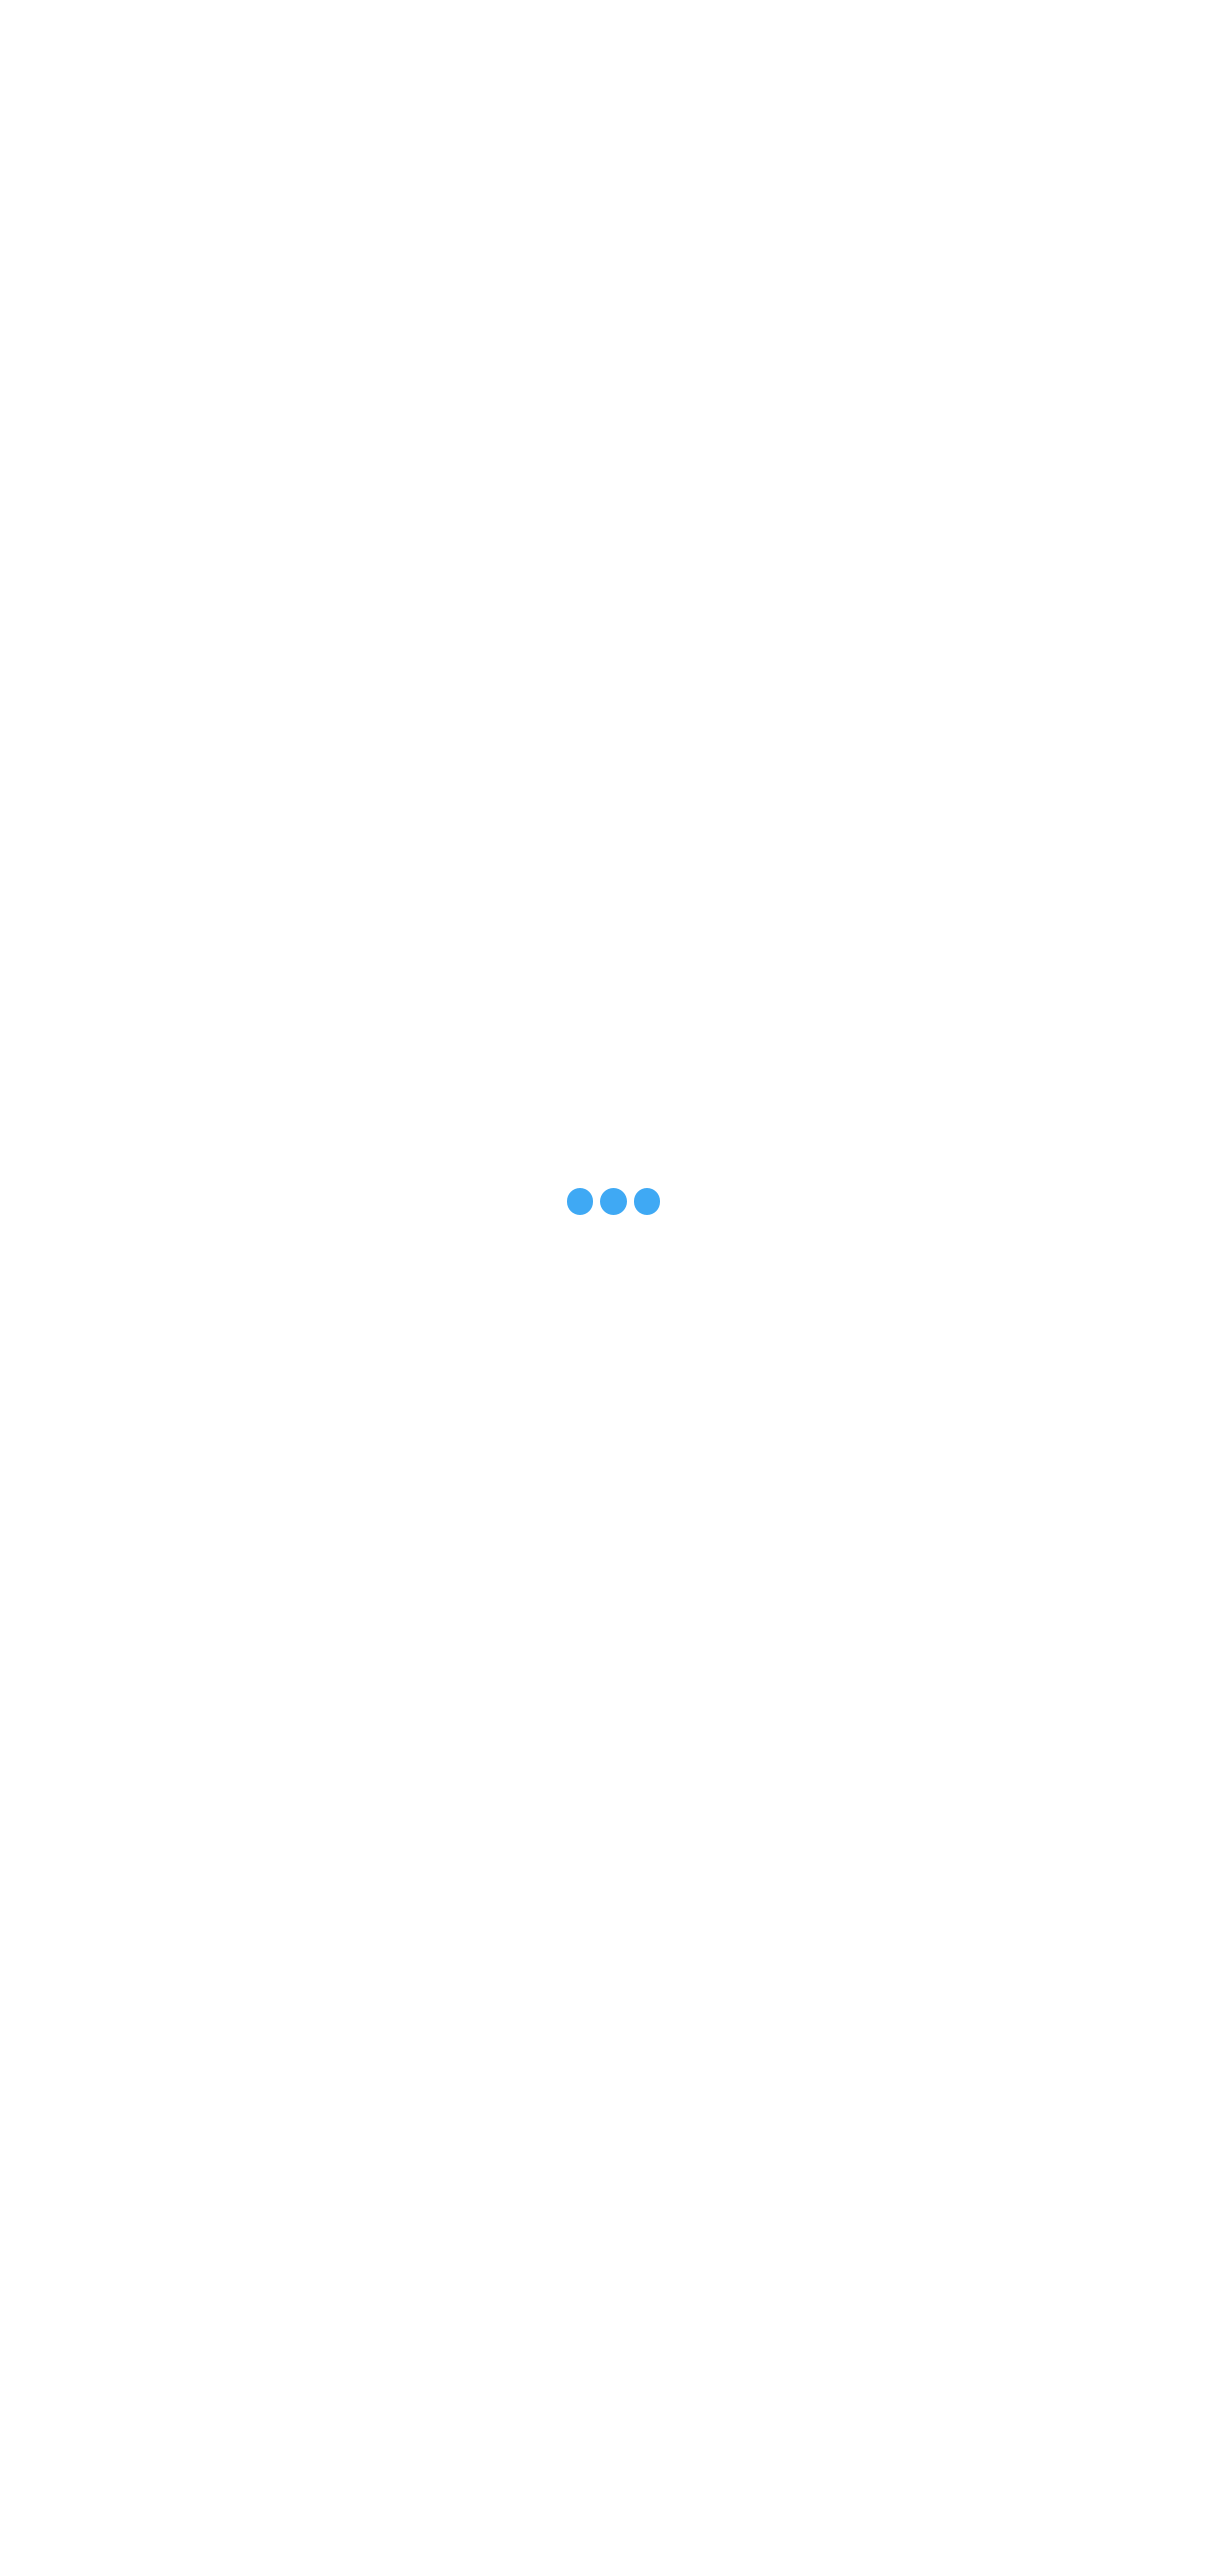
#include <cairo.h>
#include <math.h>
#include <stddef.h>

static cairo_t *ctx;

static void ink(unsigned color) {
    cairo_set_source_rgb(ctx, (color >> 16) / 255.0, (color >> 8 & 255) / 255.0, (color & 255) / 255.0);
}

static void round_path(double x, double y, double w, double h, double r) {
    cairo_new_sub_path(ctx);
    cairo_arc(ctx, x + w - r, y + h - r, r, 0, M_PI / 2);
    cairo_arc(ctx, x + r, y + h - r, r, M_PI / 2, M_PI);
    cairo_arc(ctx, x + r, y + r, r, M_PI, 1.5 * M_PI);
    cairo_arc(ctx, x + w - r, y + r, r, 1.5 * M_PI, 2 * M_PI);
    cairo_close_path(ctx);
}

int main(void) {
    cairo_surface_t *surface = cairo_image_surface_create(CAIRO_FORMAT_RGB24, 1226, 2571);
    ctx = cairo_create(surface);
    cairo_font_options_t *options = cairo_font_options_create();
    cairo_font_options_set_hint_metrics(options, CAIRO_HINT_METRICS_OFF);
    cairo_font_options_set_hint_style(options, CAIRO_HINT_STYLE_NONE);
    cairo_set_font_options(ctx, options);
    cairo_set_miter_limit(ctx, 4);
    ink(0xffffff);
    cairo_paint(ctx);
    ink(0x3fa9f4);
    round_path(567, 1188, 26, 27, 13);
    cairo_fill(ctx);
    cairo_arc(ctx, 613.5, 1201.5, 13.5, 0, 2 * M_PI);
    cairo_fill(ctx);
    round_path(634, 1188, 26, 27, 13);
    cairo_fill(ctx);
    cairo_surface_write_to_png(surface, "screenshot.png");
    cairo_font_options_destroy(options);
    cairo_destroy(ctx);
    cairo_surface_destroy(surface);
    return 0;
}
